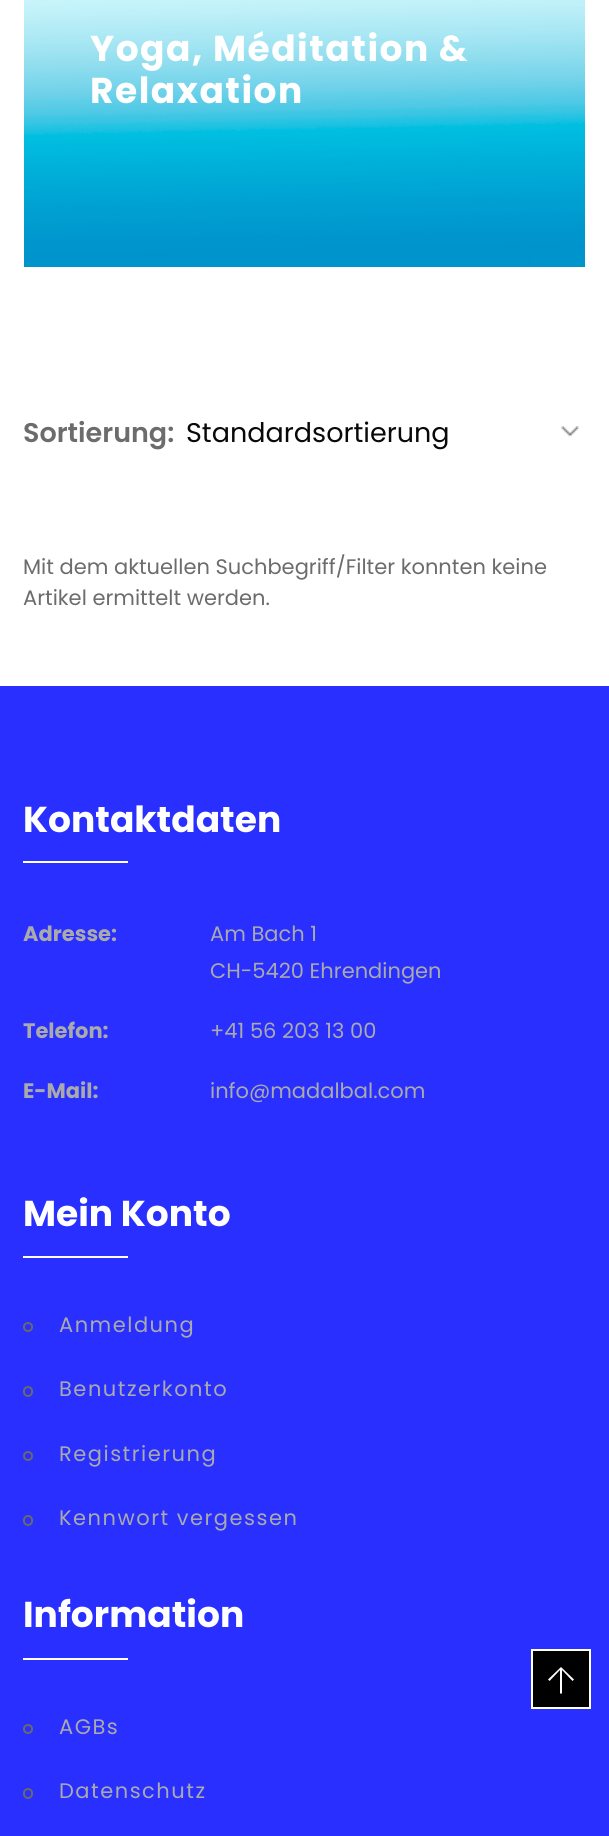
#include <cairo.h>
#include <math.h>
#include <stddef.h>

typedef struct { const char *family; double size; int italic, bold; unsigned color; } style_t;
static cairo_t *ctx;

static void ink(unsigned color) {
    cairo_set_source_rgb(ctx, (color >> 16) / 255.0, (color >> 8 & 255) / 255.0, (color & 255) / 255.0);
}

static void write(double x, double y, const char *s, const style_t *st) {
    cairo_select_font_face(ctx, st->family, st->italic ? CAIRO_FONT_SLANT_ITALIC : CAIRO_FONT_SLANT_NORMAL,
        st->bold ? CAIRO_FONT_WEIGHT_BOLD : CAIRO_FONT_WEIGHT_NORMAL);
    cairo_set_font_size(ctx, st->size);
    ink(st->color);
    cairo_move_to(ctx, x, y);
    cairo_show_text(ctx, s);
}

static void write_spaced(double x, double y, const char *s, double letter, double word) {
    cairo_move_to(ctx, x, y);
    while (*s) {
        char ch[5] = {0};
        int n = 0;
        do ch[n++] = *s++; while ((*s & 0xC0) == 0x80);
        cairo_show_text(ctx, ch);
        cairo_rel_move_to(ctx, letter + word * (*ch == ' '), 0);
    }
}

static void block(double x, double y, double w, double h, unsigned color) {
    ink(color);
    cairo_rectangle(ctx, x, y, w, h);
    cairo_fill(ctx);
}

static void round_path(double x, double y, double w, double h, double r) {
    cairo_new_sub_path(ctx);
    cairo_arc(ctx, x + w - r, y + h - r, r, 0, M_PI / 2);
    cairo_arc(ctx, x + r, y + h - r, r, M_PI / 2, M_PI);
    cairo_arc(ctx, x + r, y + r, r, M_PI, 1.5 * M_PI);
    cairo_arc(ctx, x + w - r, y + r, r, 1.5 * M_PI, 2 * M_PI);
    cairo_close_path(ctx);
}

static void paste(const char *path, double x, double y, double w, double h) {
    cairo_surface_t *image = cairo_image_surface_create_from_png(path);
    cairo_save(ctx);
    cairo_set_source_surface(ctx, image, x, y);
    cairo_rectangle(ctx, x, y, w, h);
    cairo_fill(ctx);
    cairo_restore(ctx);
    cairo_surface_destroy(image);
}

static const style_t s1 = {"Poppins SemiBold", 27, 0, 0, 0x6c6c6c};
static const style_t s2 = {"Poppins", 27, 0, 0, 0x090909};
static const style_t s3 = {"Poppins", 21, 0, 0, 0x6c6c6c};
static const style_t s4 = {"Poppins", 36, 0, 1, 0xffffff};
static const style_t s5 = {"Poppins", 21, 0, 1, 0xaaaaaa};
static const style_t s6 = {"Poppins", 21, 0, 0, 0xaaaaaa};

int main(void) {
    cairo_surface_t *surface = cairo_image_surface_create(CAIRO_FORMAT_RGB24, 609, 1836);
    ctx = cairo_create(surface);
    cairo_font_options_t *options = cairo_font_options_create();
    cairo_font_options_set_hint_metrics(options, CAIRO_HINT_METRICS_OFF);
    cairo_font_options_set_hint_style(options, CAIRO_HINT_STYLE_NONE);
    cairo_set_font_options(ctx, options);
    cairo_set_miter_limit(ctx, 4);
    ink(0xffffff);
    cairo_paint(ctx);
    paste("pic1.png", 24, 0, 561, 267);
    cairo_select_font_face(ctx, "Poppins", CAIRO_FONT_SLANT_NORMAL, CAIRO_FONT_WEIGHT_BOLD);
    cairo_set_font_size(ctx, 36);
    ink(0xffffff);
    write_spaced(90, 61, "Yoga, Méditation &", 1.5, 0);
    write_spaced(90, 103, "Relaxation", 1.5, 0);
    write(23, 442, "Sortierung:", &s1);
    paste("pic2.png", 561, 426, 18, 11);
    write(186, 442, "Standardsortierung", &s2);
    write(23, 574, "Mit dem aktuellen Suchbegriff/Filter konnten keine", &s3);
    write(23, 605, "Artikel ermittelt werden.", &s3);
    block(0, 686, 609, 1150, 0x282fff);
    write(23, 832, "Kontaktdaten", &s4);
    block(23, 861, 105, 2, 0xffffff);
    write(23, 941, "Adresse:", &s5);
    write(210, 941, "Am Bach 1", &s6);
    write(210, 978, "CH-5420 Ehrendingen", &s6);
    write(23, 1038, "Telefon:", &s5);
    write(210, 1038, "+41 56 203 13 00", &s6);
    write(23, 1098, "E-Mail:", &s5);
    write(210, 1098, "info@madalbal.com", &s6);
    write(23, 1226, "Mein Konto", &s4);
    block(23, 1256, 105, 2, 0xffffff);
    cairo_new_path(ctx);
    cairo_arc(ctx, 28, 1327, 4, 0, 2 * M_PI);
    ink(0x696969);
    cairo_stroke(ctx);
    cairo_select_font_face(ctx, "Poppins", CAIRO_FONT_SLANT_NORMAL, CAIRO_FONT_WEIGHT_NORMAL);
    cairo_set_font_size(ctx, 21);
    ink(0xaaaaaa);
    write_spaced(59, 1332, "Anmeldung", 1.5, 0);
    round_path(24, 1387, 8, 9, 4);
    ink(0x696969);
    cairo_stroke(ctx);
    ink(0xaaaaaa);
    write_spaced(59, 1396, "Benutzerkonto", 1.5, 0);
    cairo_new_path(ctx);
    cairo_arc(ctx, 28, 1456, 4, 0, 2 * M_PI);
    ink(0x696969);
    cairo_stroke(ctx);
    ink(0xaaaaaa);
    write_spaced(59, 1461, "Registrierung", 1.5, 0);
    round_path(24, 1516, 8, 9, 4);
    ink(0x696969);
    cairo_stroke(ctx);
    ink(0xaaaaaa);
    write_spaced(59, 1525, "Kennwort vergessen", 1.5, 0);
    write(23, 1627, "Information", &s4);
    block(23, 1658, 105, 2, 0xffffff);
    cairo_new_path(ctx);
    cairo_arc(ctx, 28, 1729, 4, 0, 2 * M_PI);
    ink(0x696969);
    cairo_stroke(ctx);
    cairo_select_font_face(ctx, "Poppins", CAIRO_FONT_SLANT_NORMAL, CAIRO_FONT_WEIGHT_NORMAL);
    cairo_set_font_size(ctx, 21);
    ink(0xaaaaaa);
    write_spaced(59, 1734, "AGBs", 1.5, 0);
    round_path(24, 1789, 8, 9, 4);
    ink(0x696969);
    cairo_stroke(ctx);
    ink(0xaaaaaa);
    write_spaced(59, 1798, "Datenschutz", 1.5, 0);
    ink(0x000000);
    cairo_rectangle(ctx, 532, 1650, 58, 58);
    cairo_fill_preserve(ctx);
    ink(0xffffff);
    cairo_stroke(ctx);
    cairo_new_path(ctx);
    cairo_move_to(ctx, 572.5, 1681);
    cairo_line_to(ctx, 562, 1670);
    cairo_line_to(ctx, 562, 1693.5);
    cairo_line_to(ctx, 560, 1693.5);
    cairo_line_to(ctx, 560, 1670);
    cairo_line_to(ctx, 549.5, 1681);
    cairo_line_to(ctx, 548, 1679.5);
    cairo_line_to(ctx, 561, 1667);
    cairo_line_to(ctx, 574, 1679.5);
    cairo_close_path(ctx);
    cairo_fill(ctx);
    cairo_surface_write_to_png(surface, "screenshot.png");
    cairo_font_options_destroy(options);
    cairo_destroy(ctx);
    cairo_surface_destroy(surface);
    return 0;
}
